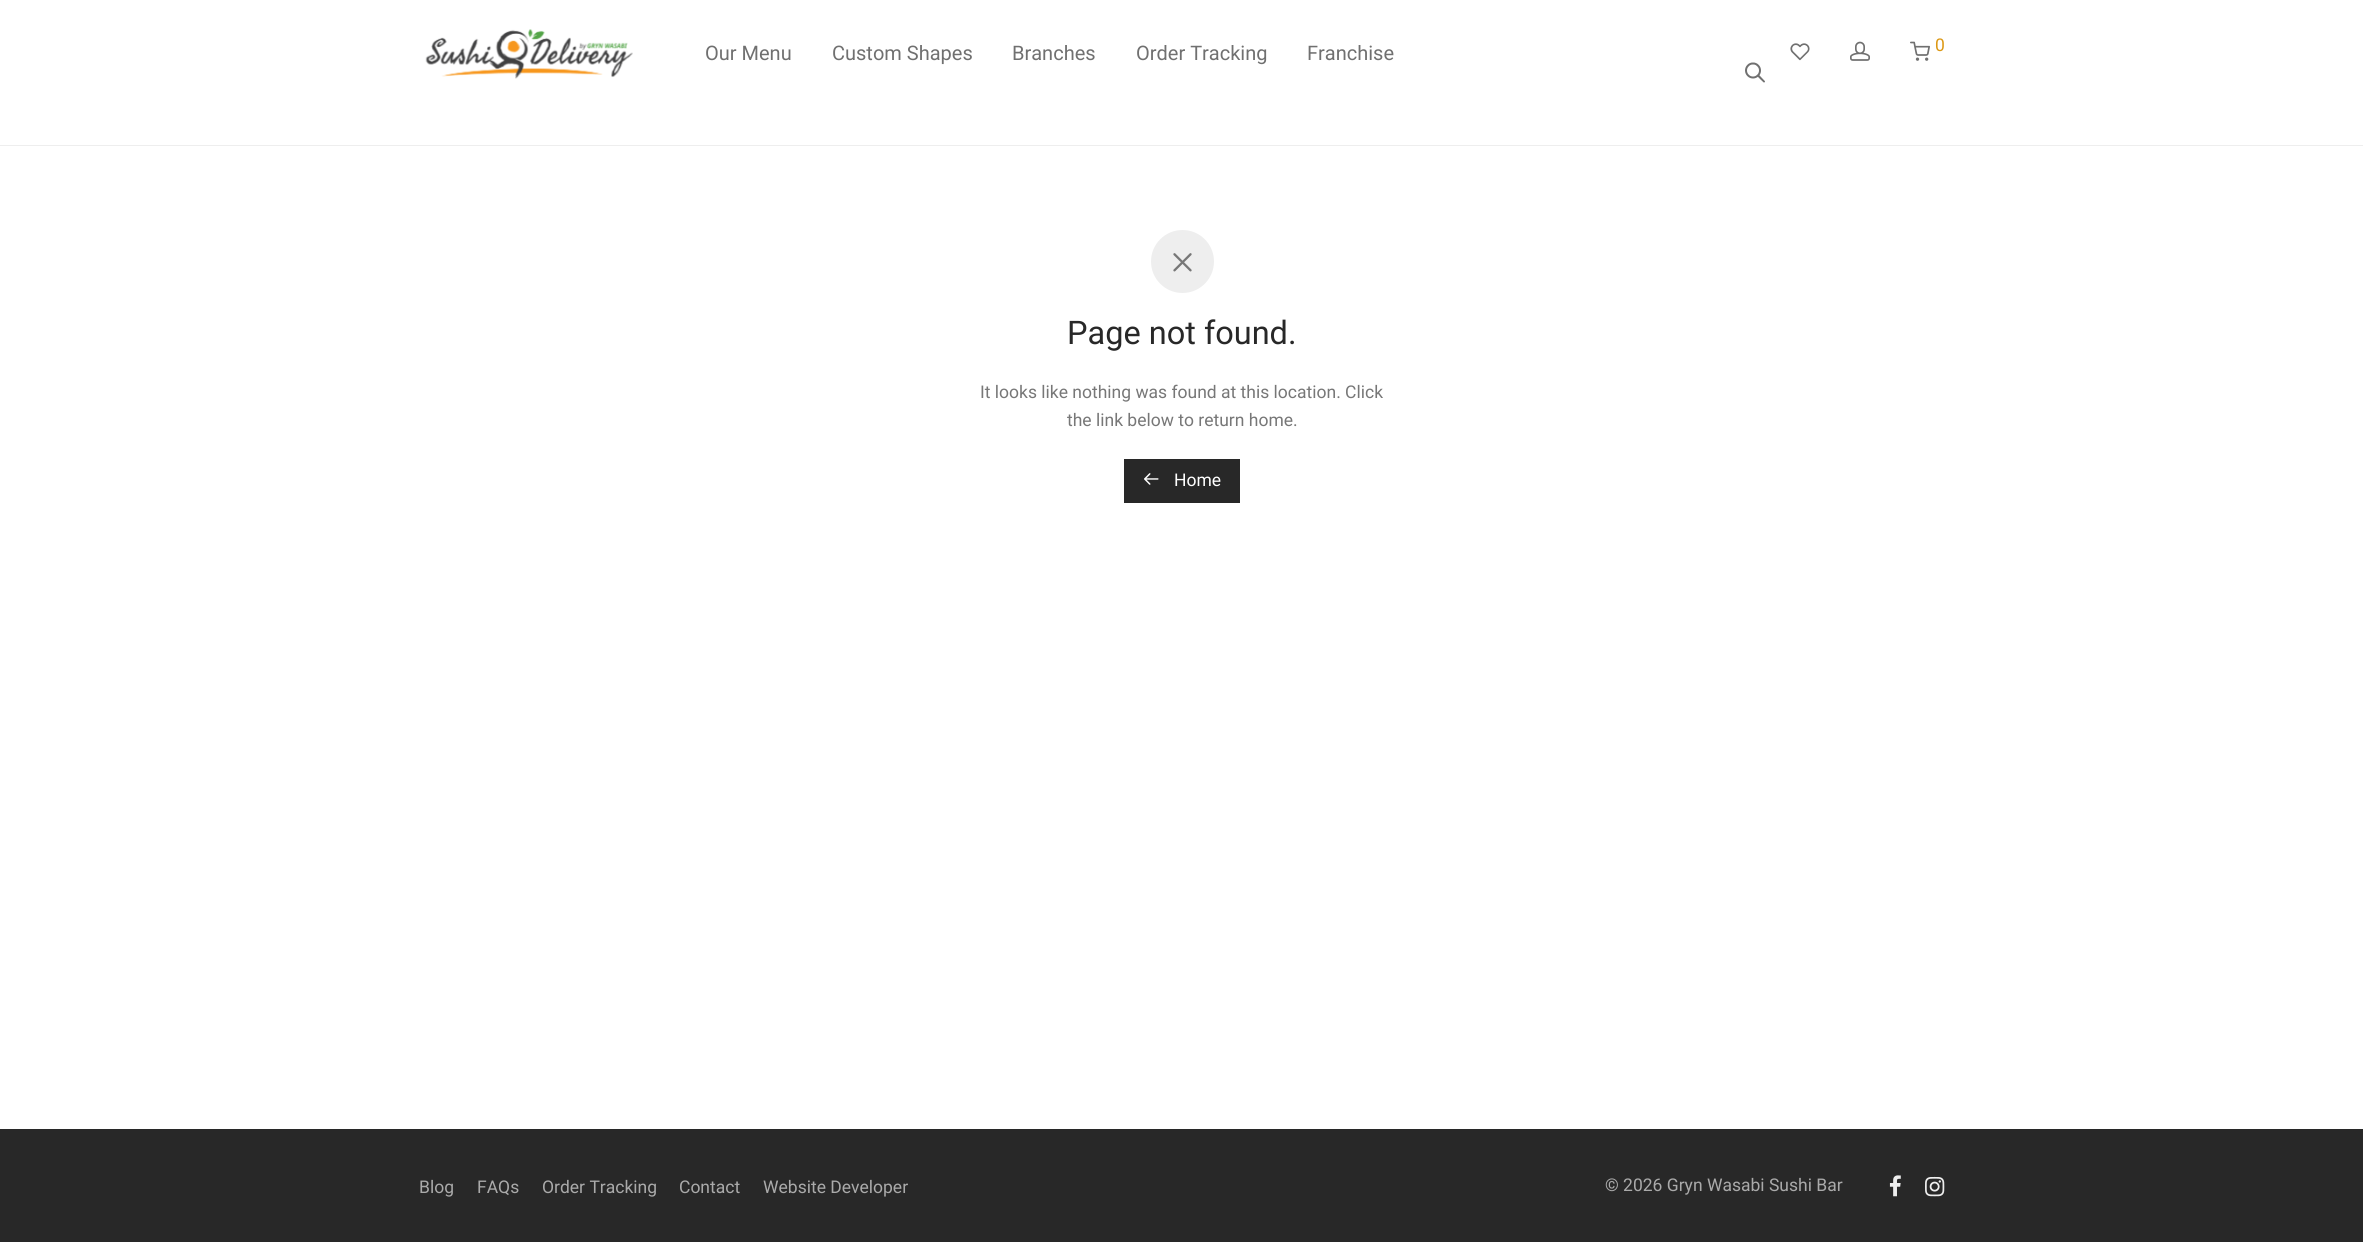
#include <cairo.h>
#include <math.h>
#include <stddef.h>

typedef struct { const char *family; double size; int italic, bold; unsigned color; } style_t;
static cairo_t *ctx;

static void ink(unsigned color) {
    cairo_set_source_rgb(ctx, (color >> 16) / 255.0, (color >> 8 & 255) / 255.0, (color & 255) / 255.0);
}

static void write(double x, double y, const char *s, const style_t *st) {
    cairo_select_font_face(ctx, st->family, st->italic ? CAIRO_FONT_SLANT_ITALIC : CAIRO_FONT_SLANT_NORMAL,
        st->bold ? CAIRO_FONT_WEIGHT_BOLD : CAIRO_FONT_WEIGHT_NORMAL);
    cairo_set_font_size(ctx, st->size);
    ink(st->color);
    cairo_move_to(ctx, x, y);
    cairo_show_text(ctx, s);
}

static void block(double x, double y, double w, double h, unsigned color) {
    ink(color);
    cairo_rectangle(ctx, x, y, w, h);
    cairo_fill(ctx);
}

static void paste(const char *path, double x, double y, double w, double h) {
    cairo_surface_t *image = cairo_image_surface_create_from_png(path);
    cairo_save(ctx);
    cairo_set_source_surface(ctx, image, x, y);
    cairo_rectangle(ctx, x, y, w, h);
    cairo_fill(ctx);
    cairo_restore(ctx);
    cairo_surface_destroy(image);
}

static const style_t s1 = {"Roboto", 20, 0, 0, 0x707070};
static const style_t s2 = {"Roboto", 17.5, 0, 0, 0xdc9814};
static const style_t s3 = {"Roboto", 32.5, 0, 0, 0x282828};
static const style_t s4 = {"Roboto", 17.5, 0, 0, 0x777777};
static const style_t s5 = {"Roboto", 17.5, 0, 0, 0xffffff};
static const style_t s6 = {"Roboto", 17.5, 0, 0, 0xaaaaaa};

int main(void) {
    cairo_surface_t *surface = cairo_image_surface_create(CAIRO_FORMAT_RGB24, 2363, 1242);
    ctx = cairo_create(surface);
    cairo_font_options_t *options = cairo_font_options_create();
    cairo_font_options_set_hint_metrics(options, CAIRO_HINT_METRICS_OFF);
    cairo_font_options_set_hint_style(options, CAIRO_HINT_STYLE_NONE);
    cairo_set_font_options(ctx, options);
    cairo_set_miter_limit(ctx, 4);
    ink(0xffffff);
    cairo_paint(ctx);
    block(0, 145, 2363, 1, 0xeeeeee);
    paste("pic1.png", 425, 29, 208, 50);
    write(705, 60, "Our Menu", &s1);
    write(832, 60, "Custom Shapes", &s1);
    write(1012, 60, "Branches", &s1);
    write(1136, 60, "Order Tracking", &s1);
    write(1307, 60, "Franchise", &s1);
    paste("pic2.png", 1790, 43, 20, 18);
    paste("pic3.png", 1850, 41, 20, 20);
    paste("pic4.png", 1910, 41, 20, 20);
    write(1935, 51, "0", &s2);
    paste("pic5.png", 1745, 62, 20, 21);
    ink(0xeeeeee);
    cairo_arc(ctx, 1182.5, 261.5, 31.5, 0, 2 * M_PI);
    cairo_fill(ctx);
    paste("pic6.png", 1173, 253, 19, 19);
    write(1067, 344, "Page not found.", &s3);
    write(980, 398, "It looks like nothing was found at this location. Click", &s4);
    write(1067, 426, "the link below to return home.", &s4);
    block(1124, 459, 116, 44, 0x282828);
    paste("pic7.png", 1144, 473, 15, 12);
    write(1174, 486, "Home", &s5);
    block(0, 1129, 2363, 113, 0x282828);
    write(419, 1193, "Blog", &s6);
    write(477, 1193, "FAQs", &s6);
    write(542, 1193, "Order Tracking", &s6);
    write(679, 1193, "Contact", &s6);
    write(763, 1193, "Website Developer", &s6);
    write(1605, 1191, "© 2026 Gryn Wasabi Sushi Bar", &s6);
    paste("pic8.png", 1889, 1175, 12, 22);
    paste("pic9.png", 1925, 1176, 20, 21);
    cairo_surface_write_to_png(surface, "screenshot.png");
    cairo_font_options_destroy(options);
    cairo_destroy(ctx);
    cairo_surface_destroy(surface);
    return 0;
}
